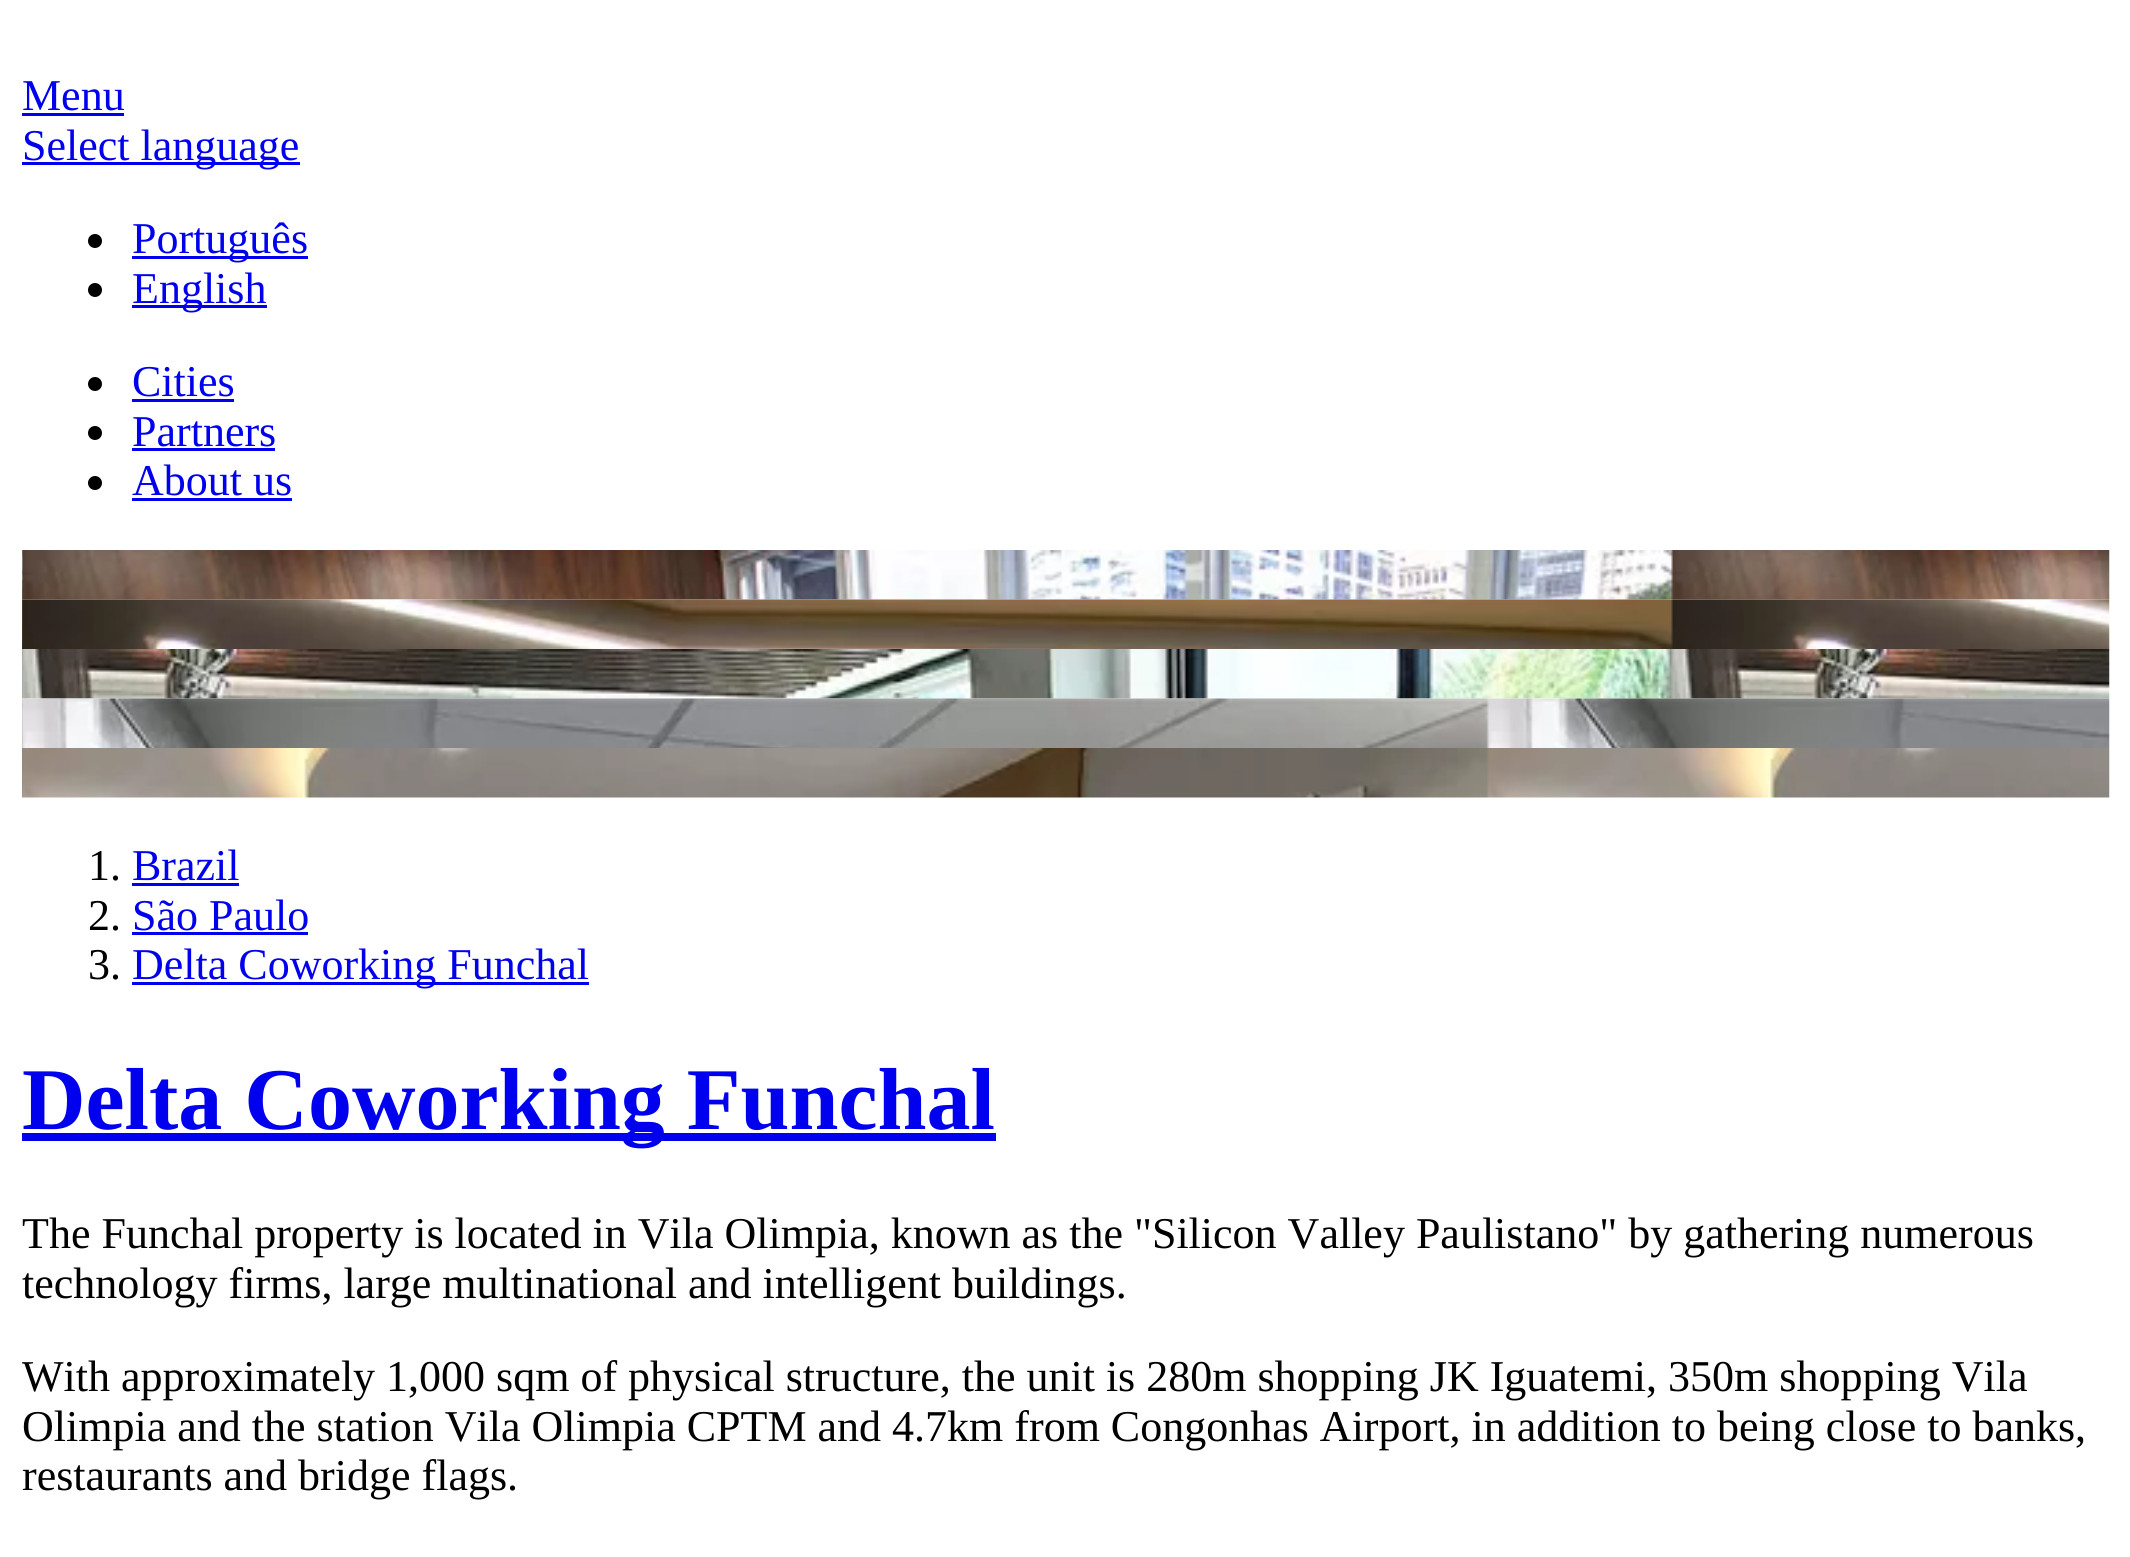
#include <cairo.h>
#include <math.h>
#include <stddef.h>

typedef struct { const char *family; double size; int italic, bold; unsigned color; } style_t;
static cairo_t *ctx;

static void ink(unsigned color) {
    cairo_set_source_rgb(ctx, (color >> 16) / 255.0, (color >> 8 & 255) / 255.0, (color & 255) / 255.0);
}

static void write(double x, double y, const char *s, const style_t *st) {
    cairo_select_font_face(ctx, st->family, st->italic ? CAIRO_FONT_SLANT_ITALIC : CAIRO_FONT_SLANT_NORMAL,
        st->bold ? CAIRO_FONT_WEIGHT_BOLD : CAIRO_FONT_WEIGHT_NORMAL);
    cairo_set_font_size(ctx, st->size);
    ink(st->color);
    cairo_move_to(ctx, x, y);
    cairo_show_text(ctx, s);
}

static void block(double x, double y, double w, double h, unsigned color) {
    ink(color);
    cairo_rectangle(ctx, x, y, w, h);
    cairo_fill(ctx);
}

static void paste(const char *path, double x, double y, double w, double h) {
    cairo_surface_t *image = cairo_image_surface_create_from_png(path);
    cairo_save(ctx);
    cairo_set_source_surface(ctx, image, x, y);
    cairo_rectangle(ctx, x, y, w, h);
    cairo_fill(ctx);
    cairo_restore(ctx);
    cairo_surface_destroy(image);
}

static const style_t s1 = {"Liberation Serif", 44, 0, 0, 0x0000ee};
static const style_t s2 = {"Liberation Serif", 44, 0, 0, 0x000000};
static const style_t s3 = {"Liberation Serif", 88, 0, 1, 0x0000ee};

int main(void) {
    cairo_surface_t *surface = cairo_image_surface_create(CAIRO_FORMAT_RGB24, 2130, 1557);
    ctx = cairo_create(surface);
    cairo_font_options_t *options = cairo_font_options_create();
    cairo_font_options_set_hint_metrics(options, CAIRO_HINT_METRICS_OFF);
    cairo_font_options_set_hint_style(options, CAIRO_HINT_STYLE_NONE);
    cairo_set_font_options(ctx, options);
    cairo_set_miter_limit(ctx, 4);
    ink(0xffffff);
    cairo_paint(ctx);
    write(22, 110, "Menu", &s1);
    block(22, 113, 102, 3, 0x0000ee);
    block(22, 162, 278, 3, 0x0000ee);
    write(22, 160, "Select language", &s1);
    ink(0x000000);
    cairo_new_path(ctx);
    cairo_arc(ctx, 95, 241, 7, 0, 2 * M_PI);
    cairo_fill(ctx);
    block(132, 256, 176, 3, 0x0000ee);
    write(132, 253, "Português", &s1);
    ink(0x000000);
    cairo_new_path(ctx);
    cairo_arc(ctx, 95, 290, 7, 0, 2 * M_PI);
    cairo_fill(ctx);
    block(132, 305, 135, 3, 0x0000ee);
    write(132, 303, "English", &s1);
    ink(0x000000);
    cairo_new_path(ctx);
    cairo_arc(ctx, 95, 384, 7, 0, 2 * M_PI);
    cairo_fill(ctx);
    write(132, 396, "Cities", &s1);
    block(132, 399, 102, 3, 0x0000ee);
    ink(0x000000);
    cairo_new_path(ctx);
    cairo_arc(ctx, 95, 433, 7, 0, 2 * M_PI);
    cairo_fill(ctx);
    write(132, 446, "Partners", &s1);
    block(132, 448, 143, 3, 0x0000ee);
    ink(0x000000);
    cairo_new_path(ctx);
    cairo_arc(ctx, 95, 483, 7, 0, 2 * M_PI);
    cairo_fill(ctx);
    write(132, 495, "About us", &s1);
    block(132, 498, 160, 3, 0x0000ee);
    paste("pic1.png", 22, 550, 2088, 50);
    paste("pic2.png", 22, 599, 2088, 50);
    paste("pic3.png", 22, 649, 2088, 50);
    paste("pic4.png", 22, 698, 2088, 50);
    paste("pic5.png", 22, 748, 2088, 50);
    write(88, 880, "1.", &s2);
    write(132, 880, "Brazil", &s1);
    block(132, 883, 107, 3, 0x0000ee);
    write(88, 930, "2.", &s2);
    write(132, 930, "São Paulo", &s1);
    block(132, 932, 176, 3, 0x0000ee);
    write(88, 979, "3.", &s2);
    block(132, 982, 457, 3, 0x0000ee);
    write(132, 979, "Delta Coworking Funchal", &s1);
    block(22, 1133, 974, 8, 0x0000ee);
    write(22, 1129, "Delta Coworking Funchal", &s3);
    write(22, 1248, "The Funchal property is located in Vila Olimpia, known as the \"Silicon Valley Paulistano\" by gathering numerous", &s2);
    write(22, 1298, "technology firms, large multinational and intelligent buildings.", &s2);
    write(22, 1391, "With approximately 1,000 sqm of physical structure, the unit is 280m shopping JK Iguatemi, 350m shopping Vila", &s2);
    write(22, 1441, "Olimpia and the station Vila Olimpia CPTM and 4.7km from Congonhas Airport, in addition to being close to banks,", &s2);
    write(22, 1490, "restaurants and bridge flags.", &s2);
    cairo_surface_write_to_png(surface, "screenshot.png");
    cairo_font_options_destroy(options);
    cairo_destroy(ctx);
    cairo_surface_destroy(surface);
    return 0;
}
